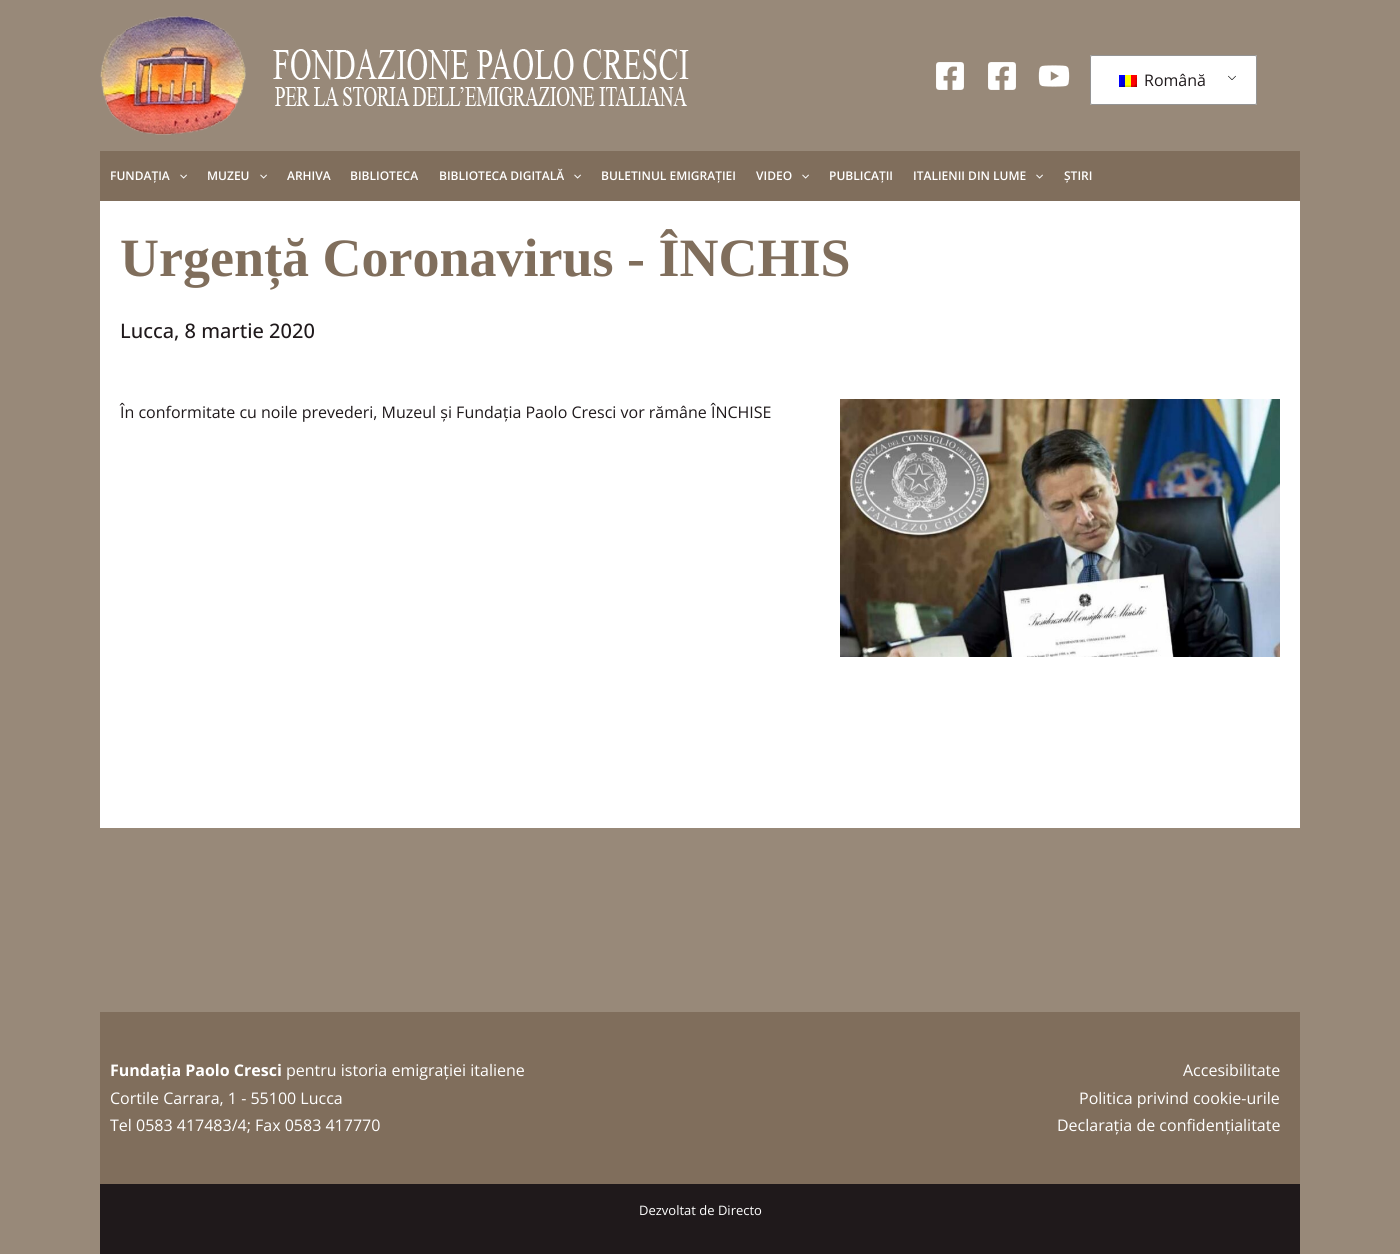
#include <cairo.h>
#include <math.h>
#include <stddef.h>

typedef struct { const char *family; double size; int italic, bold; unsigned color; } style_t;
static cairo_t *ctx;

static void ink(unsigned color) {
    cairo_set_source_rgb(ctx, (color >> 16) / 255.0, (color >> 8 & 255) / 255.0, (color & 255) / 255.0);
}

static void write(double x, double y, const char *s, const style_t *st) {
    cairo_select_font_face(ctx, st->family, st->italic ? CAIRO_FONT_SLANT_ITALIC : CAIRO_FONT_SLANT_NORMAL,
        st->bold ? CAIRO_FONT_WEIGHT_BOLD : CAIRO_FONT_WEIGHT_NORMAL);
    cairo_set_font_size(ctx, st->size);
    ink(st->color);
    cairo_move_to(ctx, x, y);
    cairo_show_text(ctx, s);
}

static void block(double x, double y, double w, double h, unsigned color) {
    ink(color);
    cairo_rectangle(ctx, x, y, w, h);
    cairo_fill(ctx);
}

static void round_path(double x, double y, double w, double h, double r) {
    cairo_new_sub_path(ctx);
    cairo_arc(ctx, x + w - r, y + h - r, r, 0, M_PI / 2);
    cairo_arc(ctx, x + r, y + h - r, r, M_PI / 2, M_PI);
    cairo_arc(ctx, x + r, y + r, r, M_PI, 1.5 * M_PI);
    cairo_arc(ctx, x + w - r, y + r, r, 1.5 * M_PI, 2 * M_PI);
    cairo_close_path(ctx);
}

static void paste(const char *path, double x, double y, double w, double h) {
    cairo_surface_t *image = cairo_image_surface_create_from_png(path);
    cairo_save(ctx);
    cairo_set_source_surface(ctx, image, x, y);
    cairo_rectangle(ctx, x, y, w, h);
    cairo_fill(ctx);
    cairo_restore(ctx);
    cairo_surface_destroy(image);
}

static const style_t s1 = {"Open Sans", 16, 0, 0, 0x1f191b};
static const style_t s2 = {"Open Sans SemiBold", 12, 0, 0, 0xffffff};
static const style_t s3 = {"Liberation Serif", 54, 0, 1, 0x806e5c};
static const style_t s4 = {"Open Sans Medium", 20, 0, 0, 0x1f191b};
static const style_t s5 = {"Open Sans", 16, 0, 1, 0xffffff};
static const style_t s6 = {"Open Sans", 16, 0, 0, 0xffffff};
static const style_t s7 = {"Open Sans", 13, 0, 0, 0xffffff};

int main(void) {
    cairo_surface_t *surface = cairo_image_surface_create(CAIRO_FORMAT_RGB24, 1400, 1254);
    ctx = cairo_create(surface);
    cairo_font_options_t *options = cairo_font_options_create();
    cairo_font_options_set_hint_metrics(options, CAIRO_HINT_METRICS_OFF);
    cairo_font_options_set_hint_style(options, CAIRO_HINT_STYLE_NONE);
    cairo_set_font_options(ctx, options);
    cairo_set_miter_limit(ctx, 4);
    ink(0x988979);
    cairo_paint(ctx);
    paste("pic1.png", 100, 16, 589, 119);
    paste("pic2.png", 936, 62, 28, 28);
    paste("pic2.png", 988, 62, 28, 28);
    paste("pic3.png", 1038, 65, 32, 22);
    ink(0xffffff);
    round_path(1090, 55, 167, 50, 2);
    cairo_fill(ctx);
    paste("pic4.png", 1228, 75, 8, 5);
    round_path(1090.5, 55.5, 166, 49, 1.5);
    ink(0x949494);
    cairo_set_line_width(ctx, 1);
    cairo_stroke(ctx);
    paste("pic5.png", 1119, 75, 18, 12);
    write(1144, 86, "Română", &s1);
    block(100, 151, 1200, 50, 0x806e5c);
    write(110, 180, "FUNDAȚIA", &s2);
    paste("pic6.png", 180, 174, 7, 5);
    write(207, 180, "MUZEU", &s2);
    paste("pic6.png", 260, 174, 7, 5);
    write(287, 180, "ARHIVA", &s2);
    write(350, 180, "BIBLIOTECA", &s2);
    write(439, 180, "BIBLIOTECA DIGITALĂ", &s2);
    paste("pic6.png", 574, 174, 7, 5);
    write(601, 180, "BULETINUL EMIGRAȚIEI", &s2);
    write(756, 180, "VIDEO", &s2);
    paste("pic6.png", 802, 174, 7, 5);
    write(829, 180, "PUBLICAȚII", &s2);
    write(913, 180, "ITALIENII DIN LUME", &s2);
    paste("pic6.png", 1036, 174, 7, 5);
    write(1064, 180, "ȘTIRI", &s2);
    block(100, 201, 1200, 627, 0xffffff);
    write(120, 276, "Urgență Coronavirus - ÎNCHIS", &s3);
    write(120, 338, "Lucca, 8 martie 2020", &s4);
    write(120, 418, "În conformitate cu noile prevederi, Muzeul și Fundația Paolo Cresci vor rămâne ÎNCHISE", &s1);
    paste("pic7.png", 840, 399, 440, 258);
    block(100, 1012, 1200, 172, 0x806e5c);
    write(110, 1076, "Fundația Paolo Cresci", &s5);
    write(286, 1076, "pentru istoria emigrației italiene", &s6);
    write(110, 1104, "Cortile Carrara, 1 - 55100 Lucca", &s6);
    write(110, 1131, "Tel 0583 417483/4; Fax 0583 417770", &s6);
    write(1183, 1076, "Accesibilitate", &s6);
    write(1079, 1104, "Politica privind cookie-urile", &s6);
    write(1057, 1131, "Declarația de confidențialitate", &s6);
    block(100, 1184, 1200, 70, 0x1f191b);
    write(639, 1215, "Dezvoltat de Directo", &s7);
    cairo_surface_write_to_png(surface, "screenshot.png");
    cairo_font_options_destroy(options);
    cairo_destroy(ctx);
    cairo_surface_destroy(surface);
    return 0;
}
